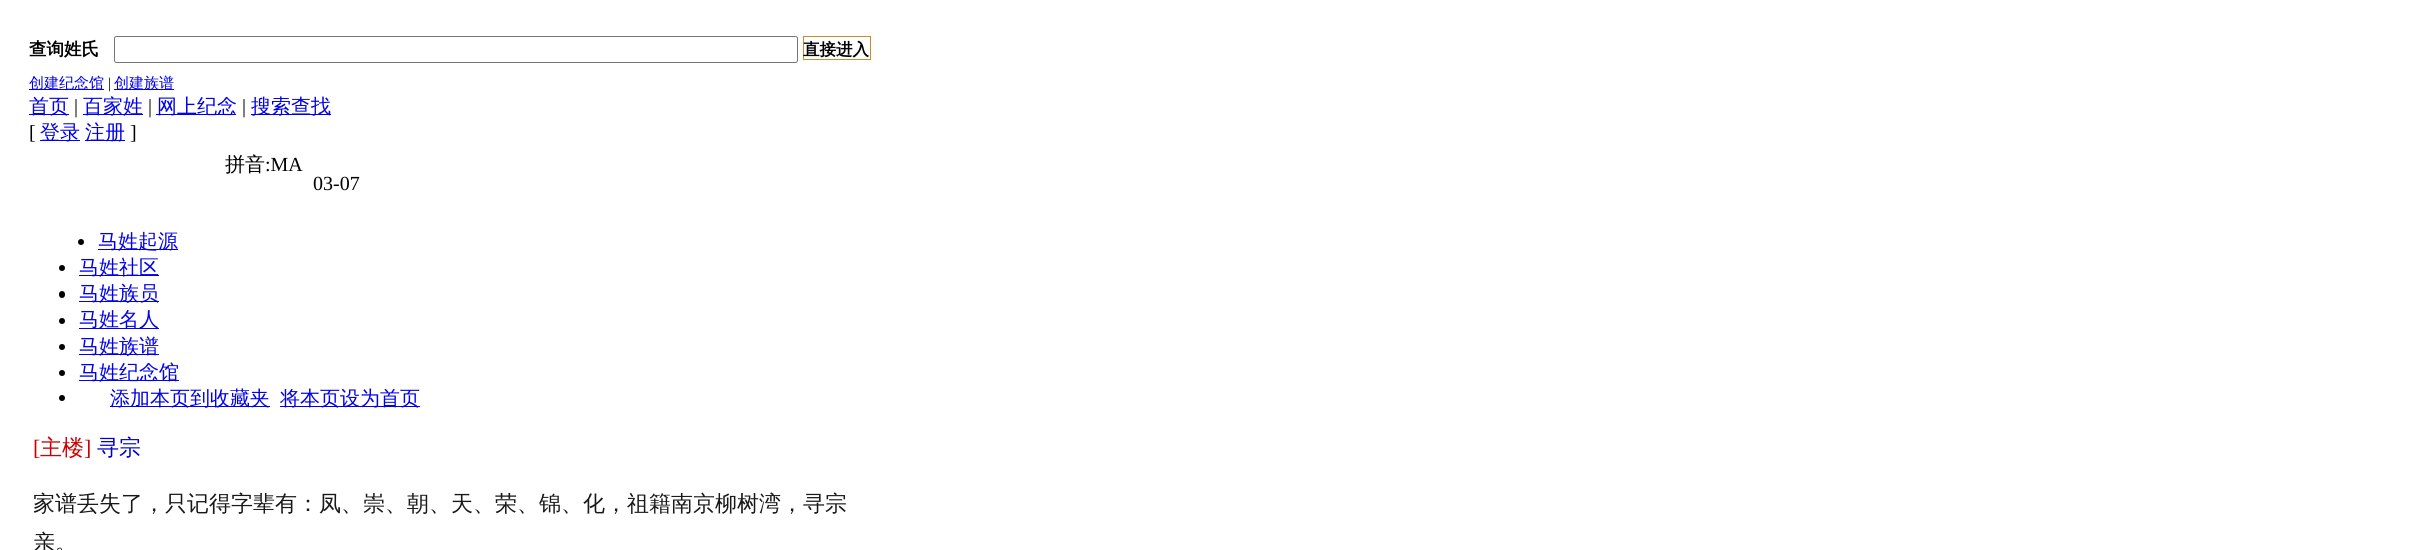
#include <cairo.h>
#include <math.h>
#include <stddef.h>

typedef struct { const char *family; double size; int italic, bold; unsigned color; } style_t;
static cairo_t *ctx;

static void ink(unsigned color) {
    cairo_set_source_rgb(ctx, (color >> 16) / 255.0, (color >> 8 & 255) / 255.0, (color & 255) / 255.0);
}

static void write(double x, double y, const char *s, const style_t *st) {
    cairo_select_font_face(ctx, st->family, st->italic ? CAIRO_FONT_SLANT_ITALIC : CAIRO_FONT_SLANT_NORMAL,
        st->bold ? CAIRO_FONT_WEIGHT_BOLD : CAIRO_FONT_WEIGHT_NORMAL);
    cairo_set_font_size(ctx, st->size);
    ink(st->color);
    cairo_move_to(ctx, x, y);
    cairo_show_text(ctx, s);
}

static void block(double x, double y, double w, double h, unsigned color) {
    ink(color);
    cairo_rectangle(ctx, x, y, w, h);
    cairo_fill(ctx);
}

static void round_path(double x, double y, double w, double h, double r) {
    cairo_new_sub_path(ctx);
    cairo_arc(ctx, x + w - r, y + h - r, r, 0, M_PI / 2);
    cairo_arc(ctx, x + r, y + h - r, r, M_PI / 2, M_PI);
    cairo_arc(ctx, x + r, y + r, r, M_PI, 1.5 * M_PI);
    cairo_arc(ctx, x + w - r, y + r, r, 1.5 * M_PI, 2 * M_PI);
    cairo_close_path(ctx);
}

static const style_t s1 = {"WenQuanYi Zen Hei", 17.5, 0, 1, 0x000000};
static const style_t s2 = {"WenQuanYi Zen Hei", 16.5, 0, 1, 0x000000};
static const style_t s3 = {"WenQuanYi Zen Hei Medium", 15, 0, 0, 0x0000ee};
static const style_t s4 = {"Liberation Serif", 15, 0, 0, 0x000000};
static const style_t s5 = {"WenQuanYi Zen Hei Medium", 20, 0, 0, 0x0000ee};
static const style_t s6 = {"Liberation Serif", 20, 0, 0, 0x000000};
static const style_t s7 = {"WenQuanYi Zen Hei Medium", 20, 0, 0, 0x000000};
static const style_t s8 = {"Liberation Serif", 22, 0, 0, 0xcc0000};
static const style_t s9 = {"WenQuanYi Zen Hei Medium", 22, 0, 0, 0xcc0000};
static const style_t s10 = {"WenQuanYi Zen Hei Medium", 22, 0, 0, 0x0000cc};
static const style_t s11 = {"WenQuanYi Zen Hei Medium", 22, 0, 0, 0x181818};

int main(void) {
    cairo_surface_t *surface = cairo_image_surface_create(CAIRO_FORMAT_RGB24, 2416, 550);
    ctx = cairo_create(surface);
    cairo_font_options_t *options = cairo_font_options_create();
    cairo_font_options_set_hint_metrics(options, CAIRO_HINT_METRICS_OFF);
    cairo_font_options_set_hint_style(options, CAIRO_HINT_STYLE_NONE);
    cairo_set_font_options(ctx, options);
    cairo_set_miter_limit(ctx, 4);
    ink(0xffffff);
    cairo_paint(ctx);
    write(29, 55, "查询姓氏", &s1);
    round_path(114.5, 36.5, 683, 26, 2);
    ink(0x767676);
    cairo_set_line_width(ctx, 1);
    cairo_stroke(ctx);
    cairo_rectangle(ctx, 803.5, 36.5, 67, 23);
    ink(0xce8b2b);
    cairo_stroke(ctx);
    write(803, 55, "直接进入", &s2);
    block(29, 89, 75, 1, 0x0000ee);
    write(29, 88, "创建纪念馆", &s3);
    write(108, 88, "|", &s4);
    block(114, 89, 60, 1, 0x0000ee);
    write(114, 88, "创建族谱", &s3);
    block(29, 114, 40, 1, 0x0000ee);
    write(29, 113, "首页", &s5);
    write(74, 113, "|", &s6);
    block(83, 114, 60, 1, 0x0000ee);
    write(83, 113, "百家姓", &s5);
    write(148, 113, "|", &s6);
    block(156, 114, 80, 1, 0x0000ee);
    write(157, 113, "网上纪念", &s5);
    write(242, 113, "|", &s6);
    block(251, 114, 80, 1, 0x0000ee);
    write(251, 113, "搜索查找", &s5);
    write(29, 139, "[", &s6);
    block(40, 140, 40, 1, 0x0000ee);
    write(40, 139, "登录", &s5);
    block(85, 140, 40, 1, 0x0000ee);
    write(85, 139, "注册", &s5);
    write(130, 139, "]", &s6);
    write(225, 171, "拼音", &s7);
    write(265, 171, ":MA", &s6);
    write(313, 190, "03-07", &s6);
    cairo_new_path(ctx);
    cairo_arc(ctx, 81, 242, 3, 0, 2 * M_PI);
    cairo_fill(ctx);
    block(98, 249, 80, 1, 0x0000ee);
    write(98, 248, "马姓起源", &s5);
    ink(0x000000);
    cairo_new_path(ctx);
    cairo_arc(ctx, 62, 268, 3, 0, 2 * M_PI);
    cairo_fill(ctx);
    block(79, 275, 80, 1, 0x0000ee);
    write(79, 274, "马姓社区", &s5);
    ink(0x000000);
    round_path(59, 291, 6, 7, 3);
    cairo_fill(ctx);
    block(79, 301, 80, 1, 0x0000ee);
    write(79, 300, "马姓族员", &s5);
    ink(0x000000);
    cairo_new_path(ctx);
    cairo_arc(ctx, 62, 321, 3, 0, 2 * M_PI);
    cairo_fill(ctx);
    block(79, 328, 80, 1, 0x0000ee);
    write(79, 326, "马姓名人", &s5);
    ink(0x000000);
    cairo_new_path(ctx);
    cairo_arc(ctx, 62, 347, 3, 0, 2 * M_PI);
    cairo_fill(ctx);
    block(79, 354, 80, 1, 0x0000ee);
    write(79, 353, "马姓族谱", &s5);
    ink(0x000000);
    cairo_new_path(ctx);
    cairo_arc(ctx, 62, 373, 3, 0, 2 * M_PI);
    cairo_fill(ctx);
    block(79, 380, 100, 1, 0x0000ee);
    write(79, 379, "马姓纪念馆", &s5);
    ink(0x000000);
    cairo_new_path(ctx);
    cairo_arc(ctx, 62, 398, 3, 0, 2 * M_PI);
    cairo_fill(ctx);
    block(110, 406, 160, 1, 0x0000ee);
    write(110, 405, "添加本页到收藏夹", &s5);
    block(280, 406, 140, 1, 0x0000ee);
    write(280, 405, "将本页设为首页", &s5);
    write(33, 455, "[", &s8);
    write(40, 455, "主楼", &s9);
    write(84, 455, "]", &s8);
    write(97, 455, "寻宗", &s10);
    write(33, 511, "家谱丢失了，只记得字辈有：凤、崇、朝、天、荣、锦、化，祖籍南京柳树湾，寻宗", &s11);
    write(33, 550, "亲。", &s11);
    cairo_surface_write_to_png(surface, "screenshot.png");
    cairo_font_options_destroy(options);
    cairo_destroy(ctx);
    cairo_surface_destroy(surface);
    return 0;
}
